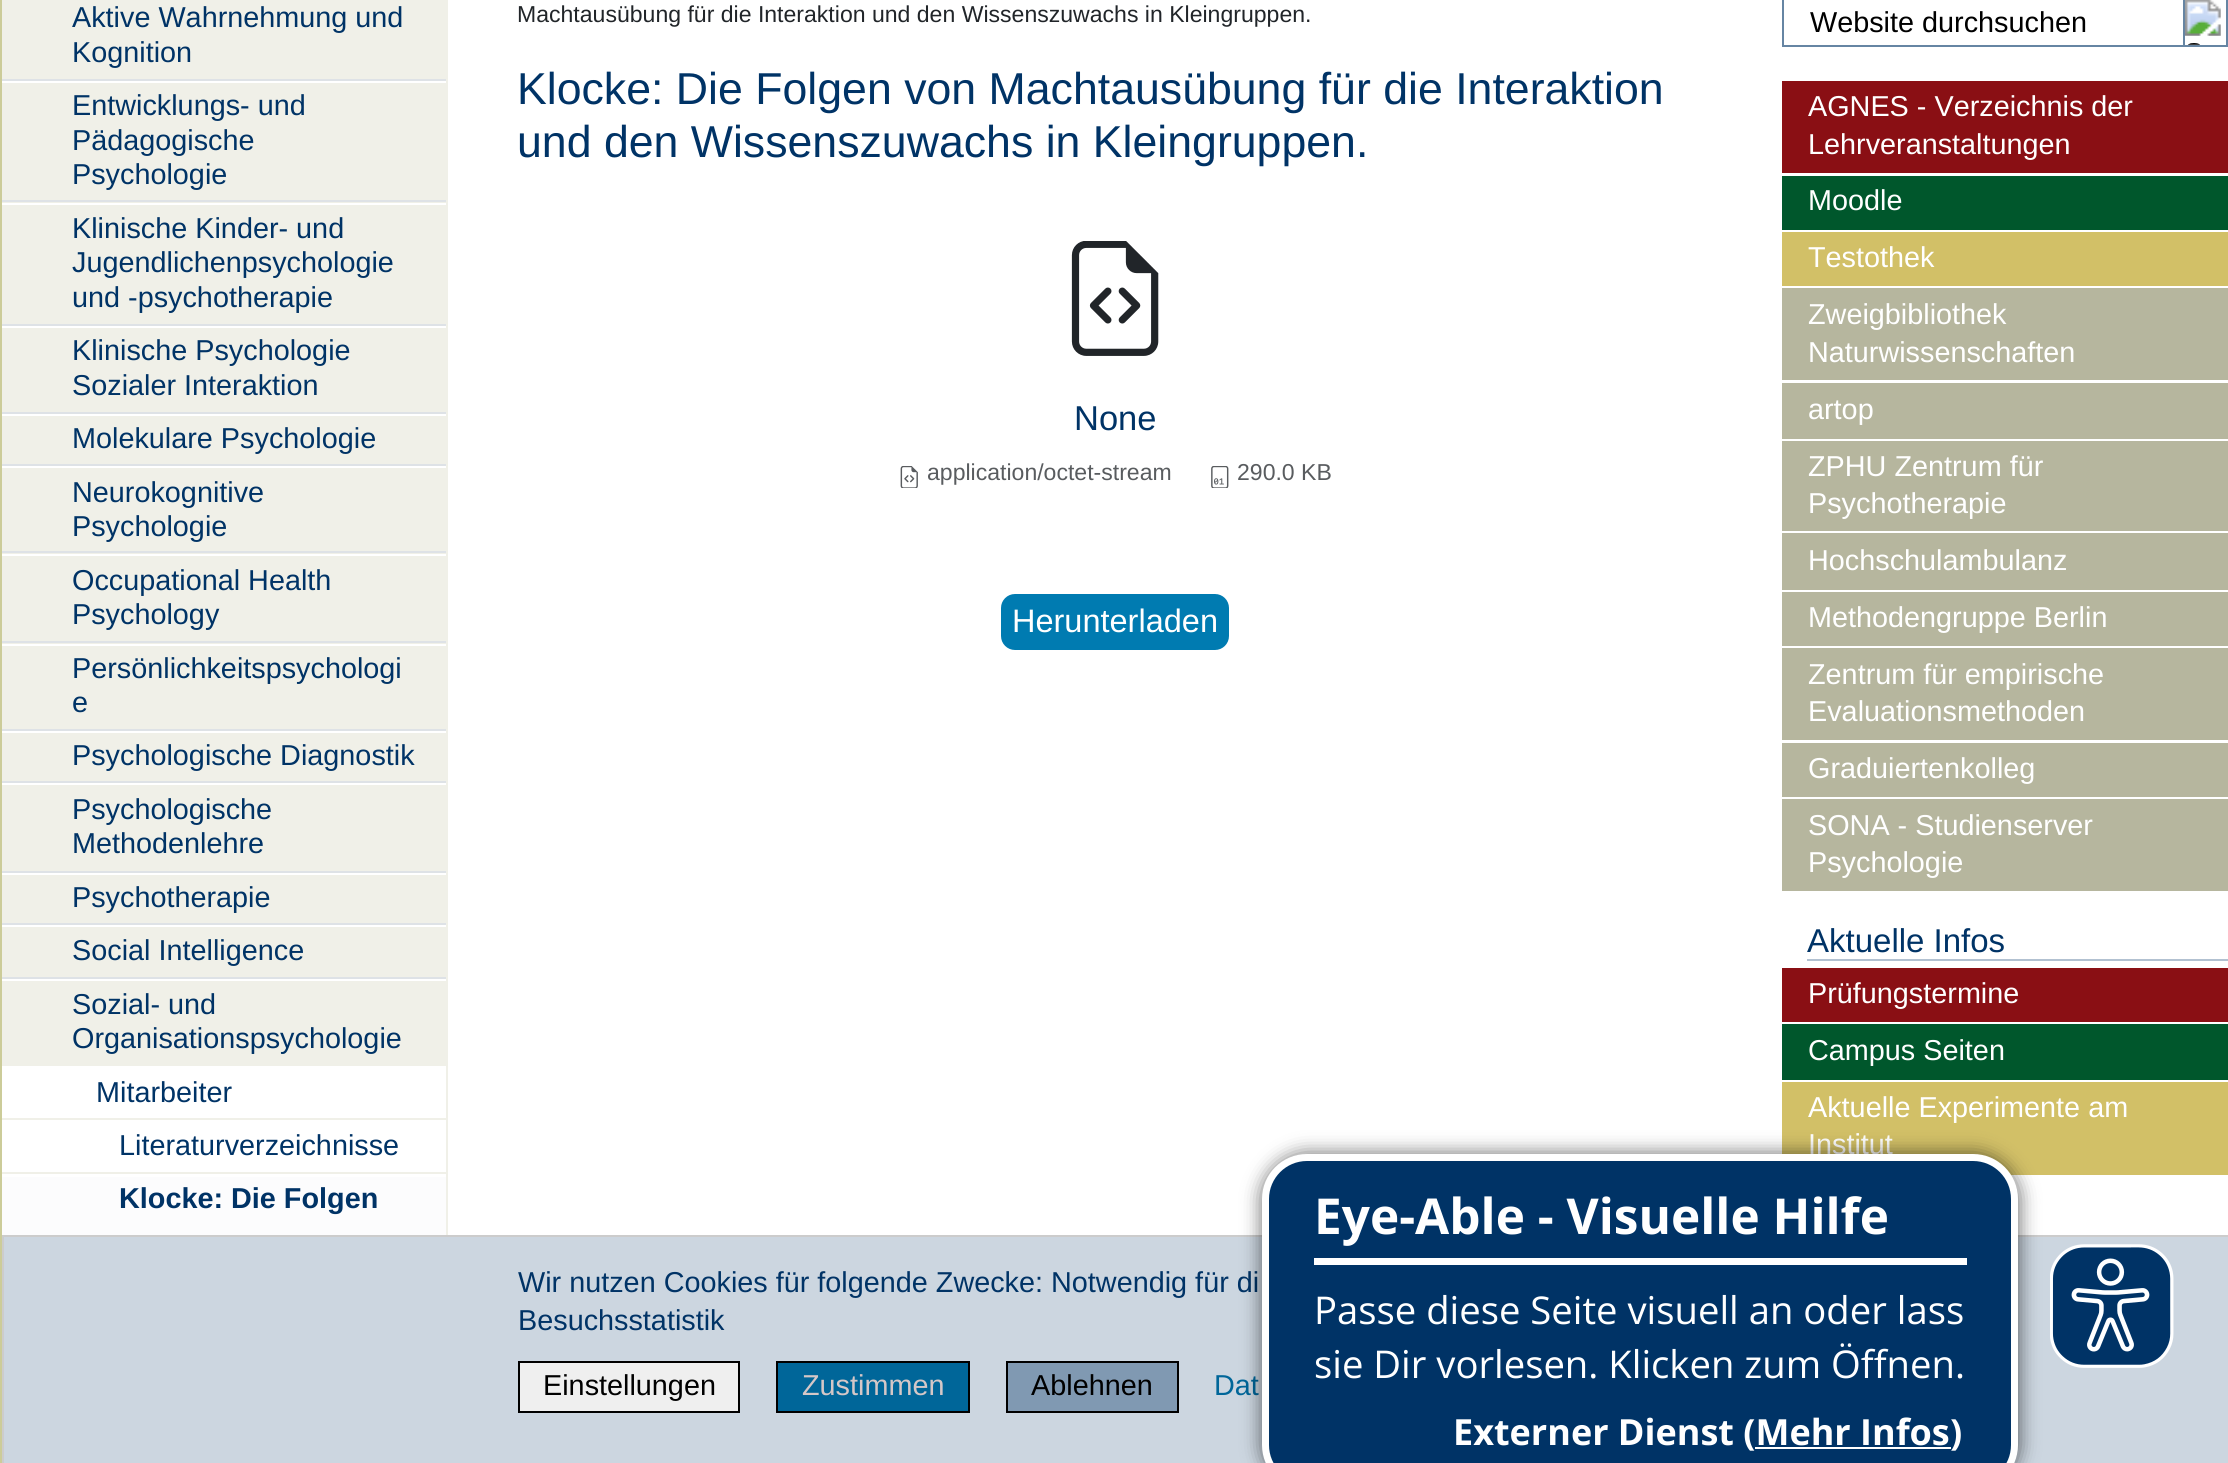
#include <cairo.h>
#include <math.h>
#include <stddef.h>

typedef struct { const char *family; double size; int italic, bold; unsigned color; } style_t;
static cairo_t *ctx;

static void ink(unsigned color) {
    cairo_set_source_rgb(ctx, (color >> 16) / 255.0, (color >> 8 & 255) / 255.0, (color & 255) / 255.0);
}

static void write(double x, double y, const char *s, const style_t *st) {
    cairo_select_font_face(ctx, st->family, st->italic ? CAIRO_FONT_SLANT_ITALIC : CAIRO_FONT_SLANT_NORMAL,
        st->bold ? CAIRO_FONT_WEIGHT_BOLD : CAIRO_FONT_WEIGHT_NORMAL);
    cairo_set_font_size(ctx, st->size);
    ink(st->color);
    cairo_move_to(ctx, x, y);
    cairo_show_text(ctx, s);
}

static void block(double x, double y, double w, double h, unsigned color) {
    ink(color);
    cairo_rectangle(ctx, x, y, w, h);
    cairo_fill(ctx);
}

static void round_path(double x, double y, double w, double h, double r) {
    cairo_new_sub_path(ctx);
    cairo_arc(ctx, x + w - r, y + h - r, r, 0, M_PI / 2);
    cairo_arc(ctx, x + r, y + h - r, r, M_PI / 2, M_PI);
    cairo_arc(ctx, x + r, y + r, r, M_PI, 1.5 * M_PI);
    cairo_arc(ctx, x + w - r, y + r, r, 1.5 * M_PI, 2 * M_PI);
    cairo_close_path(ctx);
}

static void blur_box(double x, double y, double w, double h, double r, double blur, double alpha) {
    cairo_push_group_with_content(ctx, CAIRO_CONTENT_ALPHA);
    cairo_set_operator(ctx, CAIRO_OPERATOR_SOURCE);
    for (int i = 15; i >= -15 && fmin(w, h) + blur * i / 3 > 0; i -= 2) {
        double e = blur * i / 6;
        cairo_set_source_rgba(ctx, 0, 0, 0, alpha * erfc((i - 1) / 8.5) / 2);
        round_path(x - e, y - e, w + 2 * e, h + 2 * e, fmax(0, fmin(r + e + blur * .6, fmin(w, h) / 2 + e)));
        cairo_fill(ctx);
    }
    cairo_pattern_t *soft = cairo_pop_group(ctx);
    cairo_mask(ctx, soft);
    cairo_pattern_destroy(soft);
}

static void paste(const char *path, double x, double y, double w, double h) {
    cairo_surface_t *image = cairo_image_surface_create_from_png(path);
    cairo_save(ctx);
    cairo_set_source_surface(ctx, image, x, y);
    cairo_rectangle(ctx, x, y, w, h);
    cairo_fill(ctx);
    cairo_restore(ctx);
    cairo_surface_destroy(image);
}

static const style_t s1 = {"Liberation Sans", 28.8, 0, 0, 0x003366};
static const style_t s2 = {"Liberation Sans", 28.8, 0, 1, 0x003366};
static const style_t s3 = {"Liberation Sans", 23.05, 0, 0, 0x212529};
static const style_t s4 = {"Liberation Sans", 44.65, 0, 0, 0x003366};
static const style_t s5 = {"Liberation Sans", 34.5, 0, 0, 0x003366};
static const style_t s6 = {"Liberation Sans", 23.05, 0, 0, 0x595c5f};
static const style_t s7 = {"Liberation Sans", 32.5, 0, 0, 0xffffff};
static const style_t s8 = {"Liberation Sans", 28.8, 0, 0, 0x000000};
static const style_t s9 = {"Liberation Sans", 28.8, 0, 0, 0xffffff};
static const style_t s10 = {"Liberation Sans", 33, 0, 0, 0x003366};
static const style_t s11 = {"Liberation Sans", 28.8, 0, 0, 0xd5c7c7};
static const style_t s12 = {"Liberation Sans", 28.8, 0, 0, 0x006699};
static const style_t s13 = {"Open Sans", 49.5, 0, 1, 0xffffff};
static const style_t s14 = {"Open Sans", 38.25, 0, 0, 0xffffff};
static const style_t s15 = {"Open Sans", 36, 0, 1, 0xffffff};

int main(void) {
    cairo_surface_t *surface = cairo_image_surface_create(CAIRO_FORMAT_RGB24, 2228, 1463);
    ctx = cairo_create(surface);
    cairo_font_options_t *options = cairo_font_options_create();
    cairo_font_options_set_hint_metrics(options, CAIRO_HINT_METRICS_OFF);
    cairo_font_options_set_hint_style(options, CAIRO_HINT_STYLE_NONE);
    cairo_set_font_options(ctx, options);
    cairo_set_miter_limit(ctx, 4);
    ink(0xffffff);
    cairo_paint(ctx);
    block(0, 0, 2, 1463, 0xcccc99);
    block(2, 0, 446, 79, 0xf0f0e8);
    write(72, 27, "Aktive Wahrnehmung und", &s1);
    write(72, 62, "Kognition", &s1);
    block(2, 83, 444, 117, 0xf0f0e8);
    block(2, 79, 446, 2, 0xdee2e6);
    block(446, 79, 2, 121, 0xf0f0e8);
    write(72, 115, "Entwicklungs- und", &s1);
    write(72, 150, "Pädagogische", &s1);
    write(72, 184, "Psychologie", &s1);
    block(2, 202, 444, 122, 0xf0f0e8);
    block(2, 200, 446, 2, 0xdee2e6);
    block(446, 200, 2, 124, 0xf0f0e8);
    block(2, 203, 444, 2, 0xffffff);
    write(72, 238, "Klinische Kinder- und", &s1);
    write(72, 272, "Jugendlichenpsychologie", &s1);
    write(72, 307, "und -psychotherapie", &s1);
    block(2, 328, 444, 84, 0xf0f0e8);
    block(2, 324, 446, 2, 0xdee2e6);
    block(446, 324, 2, 88, 0xf0f0e8);
    write(72, 360, "Klinische Psychologie", &s1);
    write(72, 395, "Sozialer Interaktion", &s1);
    block(2, 416, 444, 48, 0xf0f0e8);
    block(2, 412, 446, 2, 0xdee2e6);
    block(446, 412, 2, 52, 0xf0f0e8);
    write(72, 448, "Molekulare Psychologie", &s1);
    block(2, 468, 444, 83, 0xf0f0e8);
    block(2, 464, 446, 2, 0xdee2e6);
    block(446, 464, 2, 87, 0xf0f0e8);
    write(72, 502, "Neurokognitive", &s1);
    write(72, 536, "Psychologie", &s1);
    block(2, 553, 444, 88, 0xf0f0e8);
    block(2, 551, 446, 2, 0xdee2e6);
    block(446, 551, 2, 90, 0xf0f0e8);
    block(2, 554, 444, 2, 0xffffff);
    write(72, 590, "Occupational Health", &s1);
    write(72, 624, "Psychology", &s1);
    block(2, 643, 444, 86, 0xf0f0e8);
    block(2, 641, 446, 2, 0xdee2e6);
    block(446, 641, 2, 88, 0xf0f0e8);
    block(2, 644, 444, 2, 0xffffff);
    write(72, 678, "Persönlichkeitspsychologi", &s1);
    write(72, 712, "e", &s1);
    block(2, 733, 444, 48, 0xf0f0e8);
    block(2, 729, 446, 2, 0xdee2e6);
    block(446, 729, 2, 52, 0xf0f0e8);
    write(72, 765, "Psychologische Diagnostik", &s1);
    block(2, 785, 444, 86, 0xf0f0e8);
    block(2, 781, 446, 2, 0xdee2e6);
    block(446, 781, 2, 90, 0xf0f0e8);
    write(72, 819, "Psychologische", &s1);
    write(72, 853, "Methodenlehre", &s1);
    block(2, 875, 444, 48, 0xf0f0e8);
    block(2, 871, 446, 2, 0xdee2e6);
    block(446, 871, 2, 52, 0xf0f0e8);
    write(72, 907, "Psychotherapie", &s1);
    block(2, 927, 444, 50, 0xf0f0e8);
    block(2, 923, 446, 2, 0xdee2e6);
    block(446, 923, 2, 54, 0xf0f0e8);
    write(72, 960, "Social Intelligence", &s1);
    block(2, 981, 444, 85, 0xf0f0e8);
    block(2, 977, 446, 2, 0xdee2e6);
    block(446, 977, 2, 258, 0xf0f0e8);
    write(72, 1014, "Sozial- und", &s1);
    write(72, 1048, "Organisationspsychologie", &s1);
    write(96, 1102, "Mitarbeiter", &s1);
    block(2, 1118, 444, 2, 0xf0f0e8);
    write(119, 1155, "Literaturverzeichnisse", &s1);
    block(2, 1172, 444, 2, 0xf0f0e8);
    block(2, 1177, 444, 58, 0xfcfcfd);
    write(119, 1208, "Klocke: Die Folgen", &s2);
    write(517, 22, "Machtausübung für die Interaktion und den Wissenszuwachs in Kleingruppen.", &s3);
    write(517, 104, "Klocke: Die Folgen von Machtausübung für die Interaktion", &s4);
    write(517, 157, "und den Wissenszuwachs in Kleingruppen.", &s4);
    paste("pic1.png", 1071, 241, 88, 115);
    write(1074, 430, "None", &s5);
    paste("pic2.png", 900, 466, 18, 22);
    write(927, 480, "application/octet-stream", &s6);
    paste("pic3.png", 1211, 466, 18, 22);
    write(1237, 480, "290.0 KB", &s6);
    ink(0x007bb1);
    round_path(1001, 594, 228, 56, 14);
    cairo_fill(ctx);
    write(1012, 632, "Herunterladen", &s7);
    cairo_rectangle(ctx, 1783, -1, 444, 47);
    ink(0x6685a3);
    cairo_stroke(ctx);
    write(1810, 32, "Website durchsuchen", &s8);
    cairo_rectangle(ctx, 2184, -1, 43, 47);
    ink(0x6685a3);
    cairo_stroke(ctx);
    paste("pic4.png", 2185, 0, 36, 45);
    block(1782, 81, 446, 92, 0x8a0f14);
    write(1808, 116, "AGNES - Verzeichnis der", &s9);
    write(1808, 154, "Lehrveranstaltungen", &s9);
    block(1782, 176, 446, 54, 0x00572c);
    write(1808, 210, "Moodle", &s9);
    block(1782, 232, 446, 54, 0xd2c067);
    write(1808, 267, "Testothek", &s9);
    block(1782, 288, 446, 92, 0xb6b69e);
    write(1808, 324, "Zweigbibliothek", &s9);
    write(1808, 362, "Naturwissenschaften", &s9);
    block(1782, 383, 446, 56, 0xb6b69e);
    write(1808, 419, "artop", &s9);
    block(1782, 441, 446, 90, 0xb6b69e);
    write(1808, 476, "ZPHU Zentrum für", &s9);
    write(1808, 513, "Psychotherapie", &s9);
    block(1782, 533, 446, 57, 0xb6b69e);
    write(1808, 570, "Hochschulambulanz", &s9);
    block(1782, 592, 446, 54, 0xb6b69e);
    write(1808, 627, "Methodengruppe Berlin", &s9);
    block(1782, 648, 446, 92, 0xb6b69e);
    write(1808, 684, "Zentrum für empirische", &s9);
    write(1808, 721, "Evaluationsmethoden", &s9);
    block(1782, 743, 446, 54, 0xb6b69e);
    write(1808, 778, "Graduiertenkolleg", &s9);
    block(1782, 799, 446, 92, 0xb6b69e);
    write(1808, 835, "SONA - Studienserver", &s9);
    write(1808, 872, "Psychologie", &s9);
    block(1807, 959, 421, 2, 0xb2c1d1);
    write(1807, 952, "Aktuelle Infos", &s10);
    block(1782, 968, 446, 54, 0x8a0f14);
    write(1808, 1003, "Prüfungstermine", &s9);
    block(1782, 1024, 446, 56, 0x00572c);
    write(1808, 1060, "Campus Seiten", &s9);
    block(1782, 1082, 446, 93, 0xd2c067);
    write(1808, 1117, "Aktuelle Experimente am", &s9);
    write(1808, 1154, "Institut", &s9);
    ink(0xccd6e0);
    cairo_rectangle(ctx, 3, 1236, 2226, 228);
    cairo_fill_preserve(ctx);
    ink(0xcccccc);
    cairo_stroke(ctx);
    write(518, 1292, "Wir nutzen Cookies für folgende Zwecke: Notwendig für di", &s1);
    write(518, 1330, "Besuchsstatistik", &s1);
    ink(0xefefef);
    cairo_rectangle(ctx, 519, 1362, 220, 50);
    cairo_fill_preserve(ctx);
    ink(0x000000);
    cairo_stroke(ctx);
    write(543, 1395, "Einstellungen", &s8);
    ink(0x006699);
    cairo_rectangle(ctx, 777, 1362, 192, 50);
    cairo_fill_preserve(ctx);
    ink(0x000000);
    cairo_stroke(ctx);
    write(802, 1395, "Zustimmen", &s11);
    ink(0x8099b2);
    cairo_rectangle(ctx, 1007, 1362, 171, 50);
    cairo_fill_preserve(ctx);
    ink(0x000000);
    cairo_stroke(ctx);
    write(1031, 1395, "Ablehnen", &s8);
    write(1214, 1395, "Dat", &s12);
    ink(0x000000);
    blur_box(1260, 1152, 761, 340, 47, 9, 0.5);
    ink(0x003366);
    round_path(1265.5, 1157.5, 749, 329, 41.5);
    cairo_fill_preserve(ctx);
    ink(0xffffff);
    cairo_set_line_width(ctx, 7);
    cairo_stroke(ctx);
    block(1314, 1258, 653, 7, 0xffffff);
    write(1314, 1234, "Eye-Able - Visuelle Hilfe", &s13);
    write(1314, 1324, "Passe diese Seite visuell an oder lass", &s14);
    write(1314, 1378, "sie Dir vorlesen. Klicken zum Öffnen.", &s14);
    write(1453, 1445, "Externer Dienst (Mehr Infos", &s15);
    block(1755, 1447, 196, 2, 0xffffff);
    write(1950, 1445, ")", &s15);
    paste("pic5.png", 2050, 1244, 124, 124);
    cairo_surface_write_to_png(surface, "screenshot.png");
    cairo_font_options_destroy(options);
    cairo_destroy(ctx);
    cairo_surface_destroy(surface);
    return 0;
}
